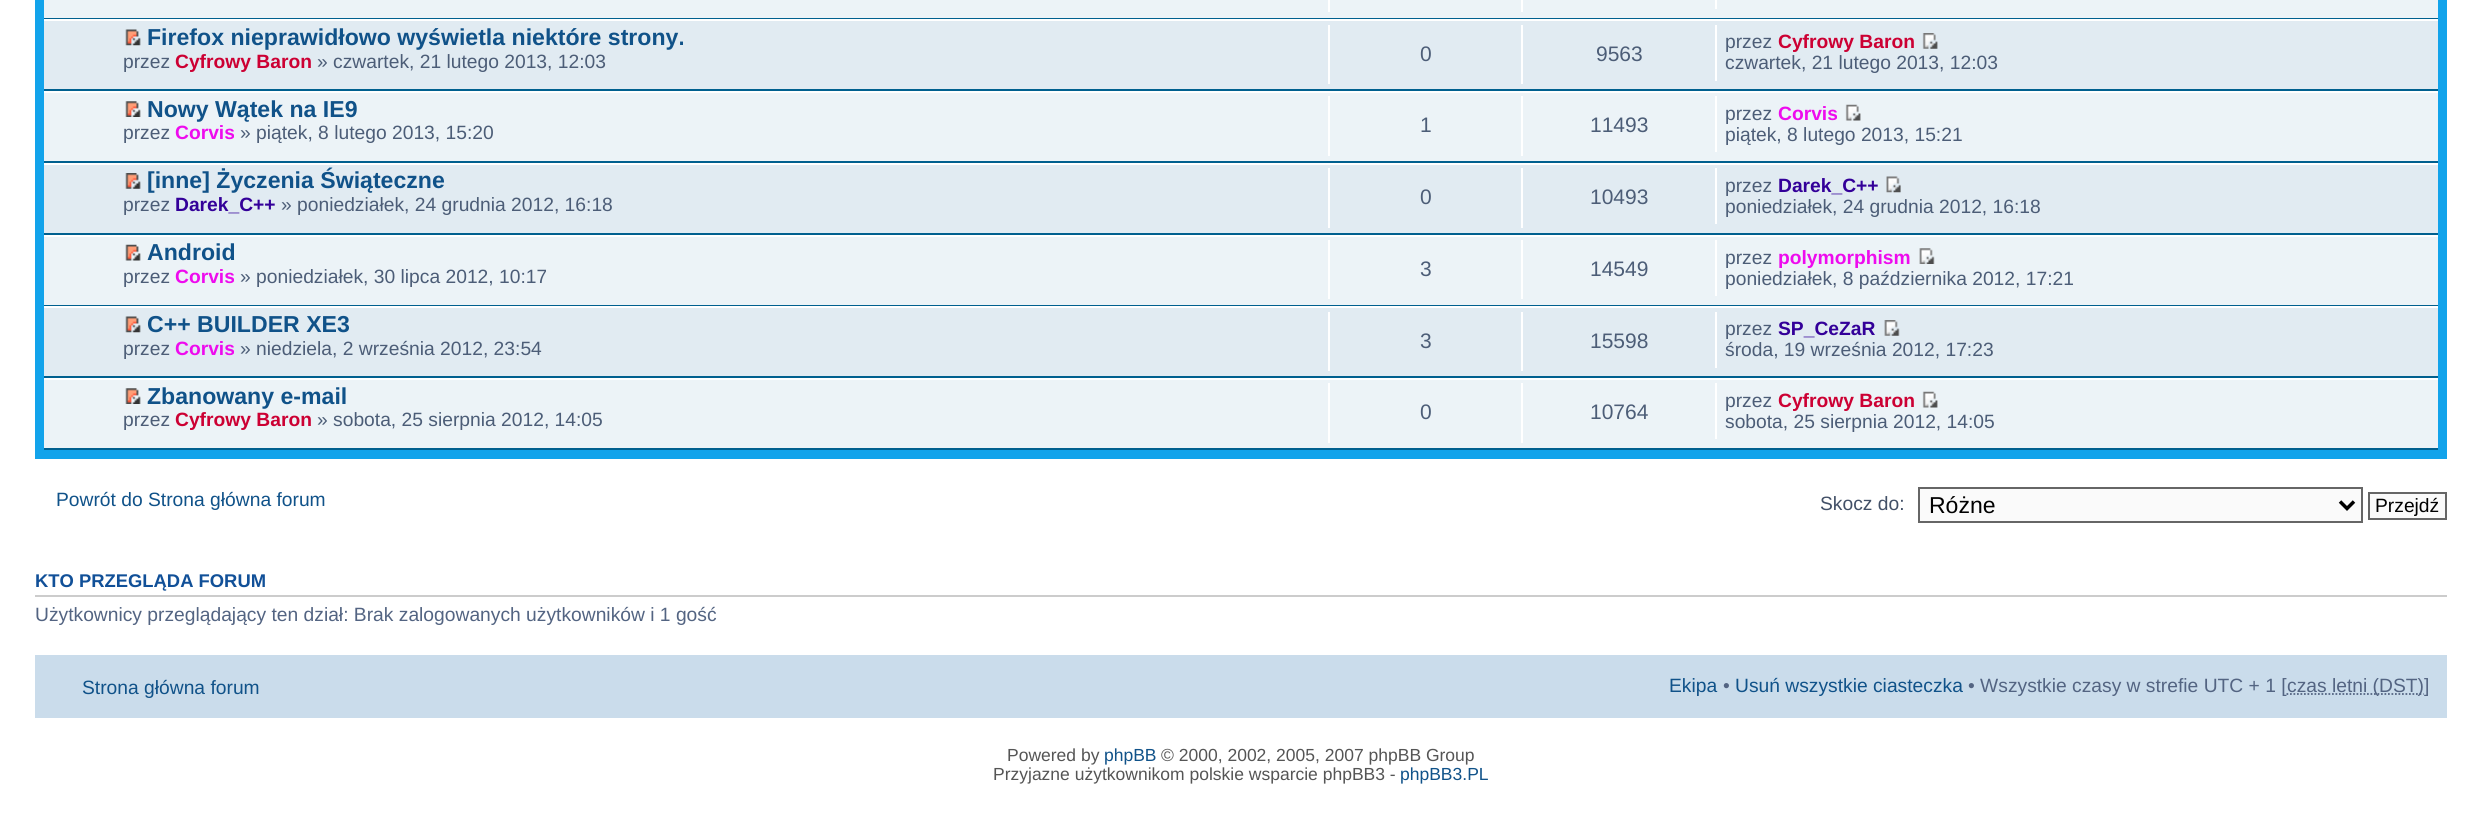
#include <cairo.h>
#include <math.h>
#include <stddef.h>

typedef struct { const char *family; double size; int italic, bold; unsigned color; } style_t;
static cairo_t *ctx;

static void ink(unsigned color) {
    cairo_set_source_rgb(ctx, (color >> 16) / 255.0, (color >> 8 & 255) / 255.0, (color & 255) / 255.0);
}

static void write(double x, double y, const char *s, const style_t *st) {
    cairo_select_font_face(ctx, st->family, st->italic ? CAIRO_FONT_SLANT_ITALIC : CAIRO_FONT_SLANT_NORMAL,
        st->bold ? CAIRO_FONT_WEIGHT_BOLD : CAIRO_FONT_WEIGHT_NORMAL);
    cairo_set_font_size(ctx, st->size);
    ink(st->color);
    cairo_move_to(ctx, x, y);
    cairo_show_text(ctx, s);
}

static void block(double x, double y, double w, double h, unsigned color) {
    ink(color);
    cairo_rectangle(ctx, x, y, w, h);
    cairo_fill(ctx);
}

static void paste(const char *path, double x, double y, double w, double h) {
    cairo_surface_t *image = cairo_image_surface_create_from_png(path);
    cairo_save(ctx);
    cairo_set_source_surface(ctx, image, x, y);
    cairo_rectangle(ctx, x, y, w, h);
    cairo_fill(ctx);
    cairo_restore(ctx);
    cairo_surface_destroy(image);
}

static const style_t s1 = {"Liberation Sans", 23.1, 0, 1, 0x105289};
static const style_t s2 = {"Liberation Sans", 19.25, 0, 0, 0x4c5d77};
static const style_t s3 = {"Liberation Sans", 19.25, 0, 1, 0xcc0033};
static const style_t s4 = {"Liberation Sans", 21, 0, 0, 0x4c5d77};
static const style_t s5 = {"Liberation Sans", 19.25, 0, 1, 0xee0bee};
static const style_t s6 = {"Liberation Sans", 19.25, 0, 1, 0x330099};
static const style_t s7 = {"Liberation Sans", 19.25, 0, 0, 0x105289};
static const style_t s8 = {"Liberation Sans", 19.25, 0, 0, 0x425067};
static const style_t s9 = {"Liberation Sans", 23, 0, 0, 0x000000};
static const style_t s10 = {"Liberation Sans", 19.25, 0, 0, 0x000000};
static const style_t s11 = {"Liberation Sans", 18.4, 0, 1, 0x115098};
static const style_t s12 = {"Liberation Sans", 19.25, 0, 0, 0x536482};
static const style_t s13 = {"Liberation Sans", 17.5, 0, 0, 0x555555};
static const style_t s14 = {"Liberation Sans", 17.5, 0, 0, 0x105289};

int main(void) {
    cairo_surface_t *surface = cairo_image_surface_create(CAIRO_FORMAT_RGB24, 2480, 813);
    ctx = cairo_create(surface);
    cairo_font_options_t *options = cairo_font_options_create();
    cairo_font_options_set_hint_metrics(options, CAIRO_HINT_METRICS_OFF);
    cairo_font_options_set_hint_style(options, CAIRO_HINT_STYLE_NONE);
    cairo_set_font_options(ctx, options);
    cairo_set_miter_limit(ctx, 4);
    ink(0xffffff);
    cairo_paint(ctx);
    block(35, 0, 2412, 459, 0x12a3eb);
    block(44, 0, 2394, 18, 0xecf3f7);
    block(44, 18, 2394, 1, 0x00608f);
    block(1328, 0, 2, 12, 0xffffff);
    block(1521, 0, 2, 12, 0xffffff);
    block(1715, 0, 2, 9, 0xffffff);
    block(44, 21, 2394, 68, 0xe1ebf2);
    block(44, 19, 2394, 2, 0xffffff);
    block(44, 89, 2394, 2, 0x00608f);
    paste("pic1.png", 125, 29, 16, 17);
    write(147, 45, "Firefox nieprawidłowo wyświetla niektóre strony.", &s1);
    write(123, 68, "przez", &s2);
    write(175, 68, "Cyfrowy Baron", &s3);
    write(317, 68, "» czwartek, 21 lutego 2013, 12:03", &s2);
    block(1328, 25, 2, 59, 0xffffff);
    write(1420, 61, "0", &s4);
    block(1521, 25, 2, 59, 0xffffff);
    write(1596, 61, "9563", &s4);
    block(1715, 25, 2, 56, 0xffffff);
    write(1725, 48, "przez", &s2);
    write(1778, 48, "Cyfrowy Baron", &s3);
    paste("pic2.png", 1922, 33, 16, 16);
    write(1725, 69, "czwartek, 21 lutego 2013, 12:03", &s2);
    block(44, 93, 2394, 68, 0xecf3f7);
    block(44, 91, 2394, 2, 0xffffff);
    block(44, 161, 2394, 2, 0x00608f);
    paste("pic3.png", 125, 101, 16, 16);
    write(147, 117, "Nowy Wątek na IE9", &s1);
    write(123, 139, "przez", &s2);
    write(175, 139, "Corvis", &s5);
    write(240, 139, "» piątek, 8 lutego 2013, 15:20", &s2);
    block(1328, 96, 2, 60, 0xffffff);
    write(1420, 132, "1", &s4);
    block(1521, 96, 2, 60, 0xffffff);
    write(1590, 132, "11493", &s4);
    block(1715, 96, 2, 56, 0xffffff);
    write(1725, 120, "przez", &s2);
    write(1778, 120, "Corvis", &s5);
    paste("pic4.png", 1845, 104, 16, 17);
    write(1725, 141, "piątek, 8 lutego 2013, 15:21", &s2);
    block(44, 165, 2394, 68, 0xe1ebf2);
    block(44, 163, 2394, 2, 0xffffff);
    block(44, 233, 2394, 2, 0x00608f);
    paste("pic5.png", 125, 173, 16, 16);
    write(147, 188, "[inne] Życzenia Świąteczne", &s1);
    write(123, 211, "przez", &s2);
    write(175, 211, "Darek_C++", &s6);
    write(281, 211, "» poniedziałek, 24 grudnia 2012, 16:18", &s2);
    block(1328, 168, 2, 60, 0xffffff);
    write(1420, 204, "0", &s4);
    block(1521, 168, 2, 60, 0xffffff);
    write(1590, 204, "10493", &s4);
    block(1715, 168, 2, 56, 0xffffff);
    write(1725, 192, "przez", &s2);
    write(1778, 192, "Darek_C++", &s6);
    paste("pic6.png", 1886, 176, 15, 17);
    write(1725, 213, "poniedziałek, 24 grudnia 2012, 16:18", &s2);
    block(44, 237, 2394, 68, 0xecf3f7);
    block(44, 235, 2394, 2, 0xffffff);
    block(44, 305, 2394, 1, 0x00608f);
    paste("pic7.png", 125, 244, 16, 17);
    write(147, 260, "Android", &s1);
    write(123, 283, "przez", &s2);
    write(175, 283, "Corvis", &s5);
    write(240, 283, "» poniedziałek, 30 lipca 2012, 10:17", &s2);
    block(1328, 240, 2, 59, 0xffffff);
    write(1420, 276, "3", &s4);
    block(1521, 240, 2, 59, 0xffffff);
    write(1590, 276, "14549", &s4);
    block(1715, 240, 2, 56, 0xffffff);
    write(1725, 264, "przez", &s2);
    write(1778, 264, "polymorphism", &s5);
    paste("pic8.png", 1919, 248, 16, 16);
    write(1725, 285, "poniedziałek, 8 października 2012, 17:21", &s2);
    block(44, 308, 2394, 68, 0xe1ebf2);
    block(44, 306, 2394, 2, 0xffffff);
    block(44, 376, 2394, 2, 0x00608f);
    paste("pic1.png", 125, 316, 16, 17);
    write(147, 332, "C++ BUILDER XE3", &s1);
    write(123, 355, "przez", &s2);
    write(175, 355, "Corvis", &s5);
    write(240, 355, "» niedziela, 2 września 2012, 23:54", &s2);
    block(1328, 312, 2, 59, 0xffffff);
    write(1420, 348, "3", &s4);
    block(1521, 312, 2, 59, 0xffffff);
    write(1590, 348, "15598", &s4);
    block(1715, 312, 2, 56, 0xffffff);
    write(1725, 335, "przez", &s2);
    write(1778, 335, "SP_CeZaR", &s6);
    paste("pic9.png", 1884, 320, 16, 16);
    write(1725, 356, "środa, 19 września 2012, 17:23", &s2);
    block(44, 380, 2394, 68, 0xecf3f7);
    block(44, 378, 2394, 2, 0xffffff);
    block(44, 448, 2394, 2, 0x00608f);
    paste("pic3.png", 125, 388, 16, 16);
    write(147, 404, "Zbanowany e-mail", &s1);
    write(123, 426, "przez", &s2);
    write(175, 426, "Cyfrowy Baron", &s3);
    write(317, 426, "» sobota, 25 sierpnia 2012, 14:05", &s2);
    block(1328, 383, 2, 60, 0xffffff);
    write(1420, 419, "0", &s4);
    block(1521, 383, 2, 60, 0xffffff);
    write(1590, 419, "10764", &s4);
    block(1715, 383, 2, 56, 0xffffff);
    write(1725, 407, "przez", &s2);
    write(1778, 407, "Cyfrowy Baron", &s3);
    paste("pic4.png", 1922, 391, 16, 17);
    write(1725, 428, "sobota, 25 sierpnia 2012, 14:05", &s2);
    write(56, 506, "Powrót do Strona główna forum", &s7);
    write(1820, 510, "Skocz do:", &s8);
    ink(0xfafafa);
    cairo_rectangle(ctx, 1919, 488, 443, 34);
    cairo_fill_preserve(ctx);
    ink(0x666666);
    cairo_stroke(ctx);
    cairo_new_path(ctx);
    cairo_move_to(ctx, 2340, 501.5);
    cairo_line_to(ctx, 2347, 508.5);
    cairo_line_to(ctx, 2354, 501.5);
    ink(0x000000);
    cairo_set_line_width(ctx, 3.5);
    cairo_stroke(ctx);
    write(1929, 513, "Różne", &s9);
    ink(0xfafafa);
    cairo_rectangle(ctx, 2369, 493, 77, 26);
    cairo_fill_preserve(ctx);
    ink(0x666666);
    cairo_set_line_width(ctx, 2);
    cairo_stroke(ctx);
    write(2375, 512, "Przejdź", &s10);
    block(35, 595, 2412, 2, 0xcccccc);
    write(35, 587, "KTO PRZEGLĄDA FORUM", &s11);
    write(35, 621, "Użytkownicy przeglądający ten dział: Brak zalogowanych użytkowników i 1 gość", &s12);
    block(35, 655, 2412, 63, 0xcadceb);
    write(82, 694, "Strona główna forum", &s7);
    write(1669, 692, "Ekipa", &s7);
    write(1723, 692, "•", &s12);
    write(1735, 692, "Usuń wszystkie ciasteczka", &s7);
    write(1968, 692, "• Wszystkie czasy w strefie UTC + 1 [", &s12);
    cairo_new_path(ctx);
    cairo_move_to(ctx, 2286.5, 694);
    cairo_line_to(ctx, 2423.5, 694);
    cairo_set_line_width(ctx, 1.8);
    cairo_set_dash(ctx, (double[]){1.75, 1.75}, 2, 0);
    cairo_stroke(ctx);
    write(2287, 692, "czas letni (DST)]", &s12);
    write(1007, 761, "Powered by", &s13);
    write(1104, 761, "phpBB", &s14);
    write(1161, 761, "© 2000, 2002, 2005, 2007 phpBB Group", &s13);
    write(993, 780, "Przyjazne użytkownikom polskie wsparcie phpBB3 -", &s13);
    write(1400, 780, "phpBB3.PL", &s14);
    cairo_surface_write_to_png(surface, "screenshot.png");
    cairo_font_options_destroy(options);
    cairo_destroy(ctx);
    cairo_surface_destroy(surface);
    return 0;
}
